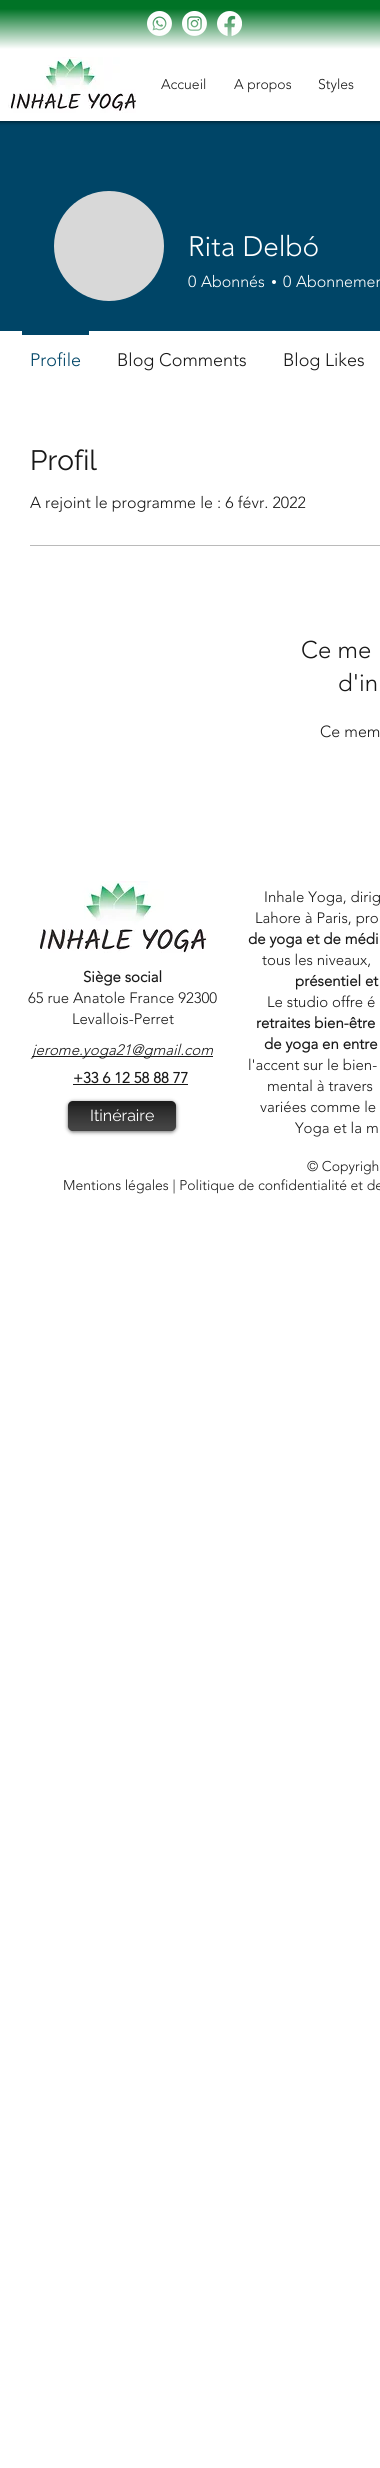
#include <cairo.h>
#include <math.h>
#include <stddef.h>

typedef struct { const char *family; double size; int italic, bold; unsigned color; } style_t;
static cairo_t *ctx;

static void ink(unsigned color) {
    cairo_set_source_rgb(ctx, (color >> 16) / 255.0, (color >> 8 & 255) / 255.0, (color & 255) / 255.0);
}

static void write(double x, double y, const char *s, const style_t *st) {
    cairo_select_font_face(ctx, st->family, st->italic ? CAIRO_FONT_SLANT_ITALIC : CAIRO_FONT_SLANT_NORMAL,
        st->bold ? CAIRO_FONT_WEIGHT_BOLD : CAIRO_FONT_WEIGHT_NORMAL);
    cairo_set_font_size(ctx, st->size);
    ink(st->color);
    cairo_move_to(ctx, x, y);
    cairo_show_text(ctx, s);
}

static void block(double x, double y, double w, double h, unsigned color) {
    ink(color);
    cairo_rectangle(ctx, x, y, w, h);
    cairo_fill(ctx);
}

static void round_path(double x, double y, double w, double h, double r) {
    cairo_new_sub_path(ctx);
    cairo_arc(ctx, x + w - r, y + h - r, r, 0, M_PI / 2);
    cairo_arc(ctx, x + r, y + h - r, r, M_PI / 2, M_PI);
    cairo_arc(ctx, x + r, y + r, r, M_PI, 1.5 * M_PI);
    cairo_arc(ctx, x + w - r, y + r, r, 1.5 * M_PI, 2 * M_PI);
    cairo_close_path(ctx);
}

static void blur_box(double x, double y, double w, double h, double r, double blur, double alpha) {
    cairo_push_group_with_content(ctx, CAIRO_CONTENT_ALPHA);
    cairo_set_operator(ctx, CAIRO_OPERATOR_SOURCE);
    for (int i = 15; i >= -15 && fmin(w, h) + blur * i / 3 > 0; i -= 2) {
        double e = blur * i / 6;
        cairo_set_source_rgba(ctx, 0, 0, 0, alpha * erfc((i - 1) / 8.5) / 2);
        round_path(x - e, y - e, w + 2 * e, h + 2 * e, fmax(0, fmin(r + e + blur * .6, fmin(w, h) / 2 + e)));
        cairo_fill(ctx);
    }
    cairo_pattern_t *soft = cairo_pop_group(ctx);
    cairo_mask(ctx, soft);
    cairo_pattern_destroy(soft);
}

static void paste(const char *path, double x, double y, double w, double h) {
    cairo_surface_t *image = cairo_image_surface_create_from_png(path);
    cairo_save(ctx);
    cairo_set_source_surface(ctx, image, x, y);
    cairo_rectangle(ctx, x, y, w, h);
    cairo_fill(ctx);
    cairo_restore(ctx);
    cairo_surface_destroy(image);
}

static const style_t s1 = {"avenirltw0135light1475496 Light", 14, 0, 0, 0x181818};
static const style_t s2 = {"avenirltw0135light1475496 Light", 28, 0, 0, 0xffffff};
static const style_t s3 = {"avenirltw0135light1475496 Light", 16, 0, 0, 0xffffff};
static const style_t s4 = {"avenirltw0135light1475496 Light", 18, 0, 0, 0x004567};
static const style_t s5 = {"avenirltw0135light1475496 Light", 18, 0, 0, 0x181818};
static const style_t s6 = {"Raleway", 28, 0, 0, 0x181818};
static const style_t s7 = {"avenirltw0135light1475496 Light", 16, 0, 0, 0x181818};
static const style_t s8 = {"avenirltw0135light1475496 Light", 24, 0, 0, 0x181818};
static const style_t s9 = {"avenirltw0135light1475496", 15, 0, 1, 0x181818};
static const style_t s10 = {"avenirltw0135light1475496 Light", 15, 0, 0, 0x181818};
static const style_t s11 = {"avenirltw0135light1475496 Light", 15, 1, 0, 0x181818};
static const style_t s12 = {"Raleway", 16, 0, 0, 0xffffff};

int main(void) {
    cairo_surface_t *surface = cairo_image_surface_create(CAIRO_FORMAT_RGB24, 380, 2468);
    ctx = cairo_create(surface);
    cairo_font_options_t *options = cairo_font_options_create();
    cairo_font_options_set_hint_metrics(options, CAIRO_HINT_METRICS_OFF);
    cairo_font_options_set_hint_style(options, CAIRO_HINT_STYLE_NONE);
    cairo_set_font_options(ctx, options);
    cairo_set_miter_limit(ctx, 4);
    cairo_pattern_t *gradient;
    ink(0xffffff);
    cairo_paint(ctx);
    block(0, 121, 380, 210, 0x004567);
    ink(0x000000);
    blur_box(-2, -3, 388, 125, 0, 2, 0.6);
    block(0, 49, 380, 72, 0xffffff);
    gradient = cairo_pattern_create_linear(74, 0, 74, 49);
    cairo_pattern_add_color_stop_rgba(gradient, 0.18, 0, 0.451, 0.149, 1);
    cairo_pattern_add_color_stop_rgba(gradient, 1, 1, 1, 1, 1);
    cairo_set_source(ctx, gradient);
    cairo_pattern_destroy(gradient);
    cairo_rectangle(ctx, 0, 0, 147, 49);
    cairo_fill(ctx);
    gradient = cairo_pattern_create_linear(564, 0, 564, 49);
    cairo_pattern_add_color_stop_rgba(gradient, 0.18, 0, 0.451, 0.149, 1);
    cairo_pattern_add_color_stop_rgba(gradient, 1, 1, 1, 1, 1);
    cairo_set_source(ctx, gradient);
    cairo_pattern_destroy(gradient);
    cairo_rectangle(ctx, 147, 0, 233, 49);
    cairo_fill(ctx);
    paste("pic1.png", 147, 11, 25, 25);
    paste("pic2.png", 182, 11, 25, 25);
    paste("pic3.png", 217, 11, 25, 25);
    paste("pic4.png", 8, 57, 128, 56);
    write(161, 89, "Accueil", &s1);
    write(234, 89, "A propos", &s1);
    write(318, 89, "Styles", &s1);
    ink(0xd8d8d8);
    cairo_new_path(ctx);
    cairo_arc(ctx, 109, 246, 55, 0, 2 * M_PI);
    cairo_fill(ctx);
    write(188, 256, "Rita Delbó", &s2);
    write(188, 287, "0", &s3);
    write(201, 287, "Abonnés", &s3);
    cairo_new_path(ctx);
    cairo_arc(ctx, 274, 282, 2, 0, 2 * M_PI);
    cairo_fill(ctx);
    write(283, 287, "0", &s3);
    write(296, 287, "Abonnemen", &s3);
    block(22, 331, 67, 4, 0x004567);
    write(30, 366, "Profile", &s4);
    write(117, 366, "Blog Comments", &s5);
    write(283, 366, "Blog Likes", &s5);
    write(30, 470, "Profil", &s6);
    write(30, 508, "A rejoint le programme le : 6 févr. 2022", &s7);
    block(30, 545, 350, 1, 0xbababa);
    write(301, 658, "Ce me", &s8);
    write(338, 691, "d'in", &s8);
    write(320, 737, "Ce mem", &s7);
    paste("pic5.png", 40, 881, 168, 72);
    write(83, 982, "Siège social", &s9);
    write(28, 1003, "65 rue Anatole France 92300", &s10);
    write(72, 1024, "Levallois-Perret", &s10);
    block(32, 1056, 181, 1, 0x181818);
    write(32, 1055, "jerome.yoga21@gmail.com", &s11);
    write(73, 1083, "+33 6 12 58 88 77", &s9);
    block(73, 1084, 115, 1, 0x181818);
    ink(0x000000);
    blur_box(68, 1102, 108, 30, 5, 2, 0.6);
    ink(0x181818);
    round_path(68, 1101, 108, 30, 5);
    cairo_fill(ctx);
    paste("pic6.png", 68, 1101, 108, 5);
    paste("pic7.png", 68, 1101, 108, 30);
    write(90, 1121, "Itinéraire", &s12);
    write(264, 902, "Inhale Yoga, dirig", &s10);
    write(255, 923, "Lahore à Paris, pro", &s10);
    write(248, 944, "de yoga et de médi", &s9);
    write(262, 965, "tous les niveaux,", &s10);
    write(295, 986, "présentiel et", &s9);
    write(267, 1007, "Le studio offre é", &s10);
    write(256, 1028, "retraites bien-être", &s9);
    write(264, 1049, "de yoga en entre", &s9);
    write(248, 1070, "l'accent sur le bien-", &s10);
    write(267, 1091, "mental à travers", &s10);
    write(260, 1112, "variées comme le", &s10);
    write(295, 1133, "Yoga et la m", &s10);
    write(307, 1171, "© Copyrigh", &s1);
    write(63, 1190, "Mentions légales | Politique de confidentialité et de", &s1);
    cairo_surface_write_to_png(surface, "screenshot.png");
    cairo_font_options_destroy(options);
    cairo_destroy(ctx);
    cairo_surface_destroy(surface);
    return 0;
}
